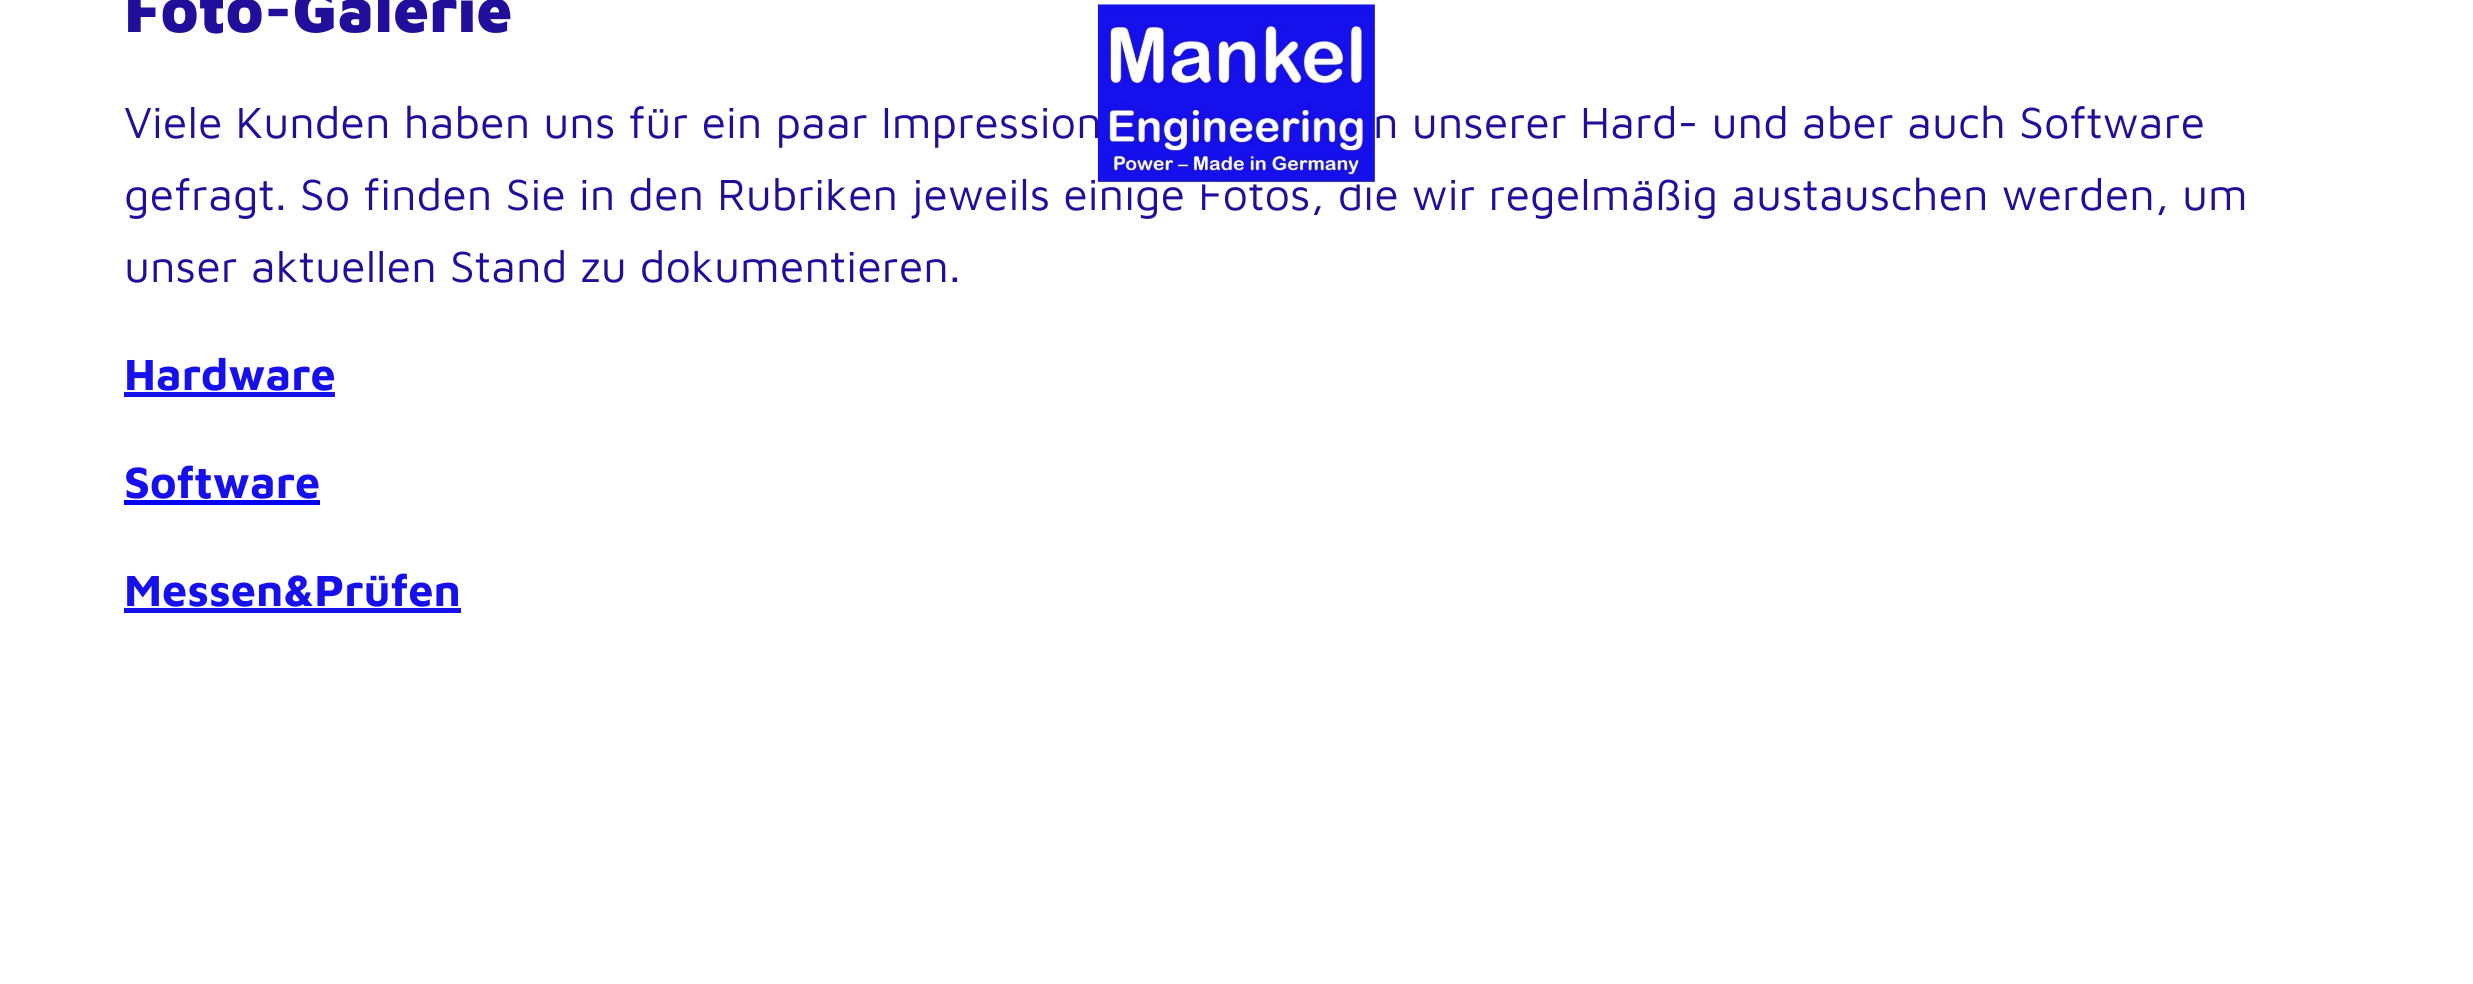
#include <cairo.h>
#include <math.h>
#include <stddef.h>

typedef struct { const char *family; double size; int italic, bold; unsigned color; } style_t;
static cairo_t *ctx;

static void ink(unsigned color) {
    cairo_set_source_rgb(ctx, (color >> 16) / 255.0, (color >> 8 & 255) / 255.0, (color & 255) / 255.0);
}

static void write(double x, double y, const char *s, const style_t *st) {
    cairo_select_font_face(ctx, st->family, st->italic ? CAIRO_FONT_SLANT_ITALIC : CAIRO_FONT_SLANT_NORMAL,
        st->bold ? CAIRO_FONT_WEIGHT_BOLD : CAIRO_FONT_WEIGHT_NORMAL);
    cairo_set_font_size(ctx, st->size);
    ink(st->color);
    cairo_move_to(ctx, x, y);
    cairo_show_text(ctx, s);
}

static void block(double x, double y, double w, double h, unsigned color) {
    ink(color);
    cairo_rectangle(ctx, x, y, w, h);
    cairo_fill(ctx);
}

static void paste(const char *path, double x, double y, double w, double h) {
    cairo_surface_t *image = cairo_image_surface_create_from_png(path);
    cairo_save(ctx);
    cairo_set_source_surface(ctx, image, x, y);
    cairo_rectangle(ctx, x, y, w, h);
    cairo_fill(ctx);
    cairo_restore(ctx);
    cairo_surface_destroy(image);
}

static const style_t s1 = {"Maven Pro Black", 63, 0, 0, 0x210e9a};
static const style_t s2 = {"Maven Pro", 45, 0, 0, 0x210e9a};
static const style_t s3 = {"Maven Pro", 45, 0, 1, 0x1610ec};

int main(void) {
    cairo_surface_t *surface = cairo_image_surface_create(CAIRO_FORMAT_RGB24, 2473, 984);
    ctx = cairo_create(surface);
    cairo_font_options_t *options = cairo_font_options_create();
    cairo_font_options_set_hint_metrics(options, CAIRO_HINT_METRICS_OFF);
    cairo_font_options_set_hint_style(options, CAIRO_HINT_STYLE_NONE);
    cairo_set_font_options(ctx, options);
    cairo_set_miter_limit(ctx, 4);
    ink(0xffffff);
    cairo_paint(ctx);
    write(124, 32, "Foto-Galerie", &s1);
    write(124, 138, "Viele Kunden haben uns für ein paar Impression", &s2);
    write(1373, 138, "n unserer Hard- und aber auch Software", &s2);
    write(124, 210, "gefragt. So finden Sie in den Rubriken jeweils einige Fotos, die wir regelmäßig austauschen werden, um", &s2);
    write(124, 282, "unser aktuellen Stand zu dokumentieren.", &s2);
    write(124, 390, "Hardware", &s3);
    block(124, 392, 211, 5, 0x1610ec);
    write(124, 498, "Software", &s3);
    block(124, 500, 196, 5, 0x0000ee);
    write(124, 606, "Messen&Prüfen", &s3);
    block(124, 608, 337, 5, 0x1610ec);
    paste("pic1.png", 1097, 4, 278, 181);
    cairo_surface_write_to_png(surface, "screenshot.png");
    cairo_font_options_destroy(options);
    cairo_destroy(ctx);
    cairo_surface_destroy(surface);
    return 0;
}
